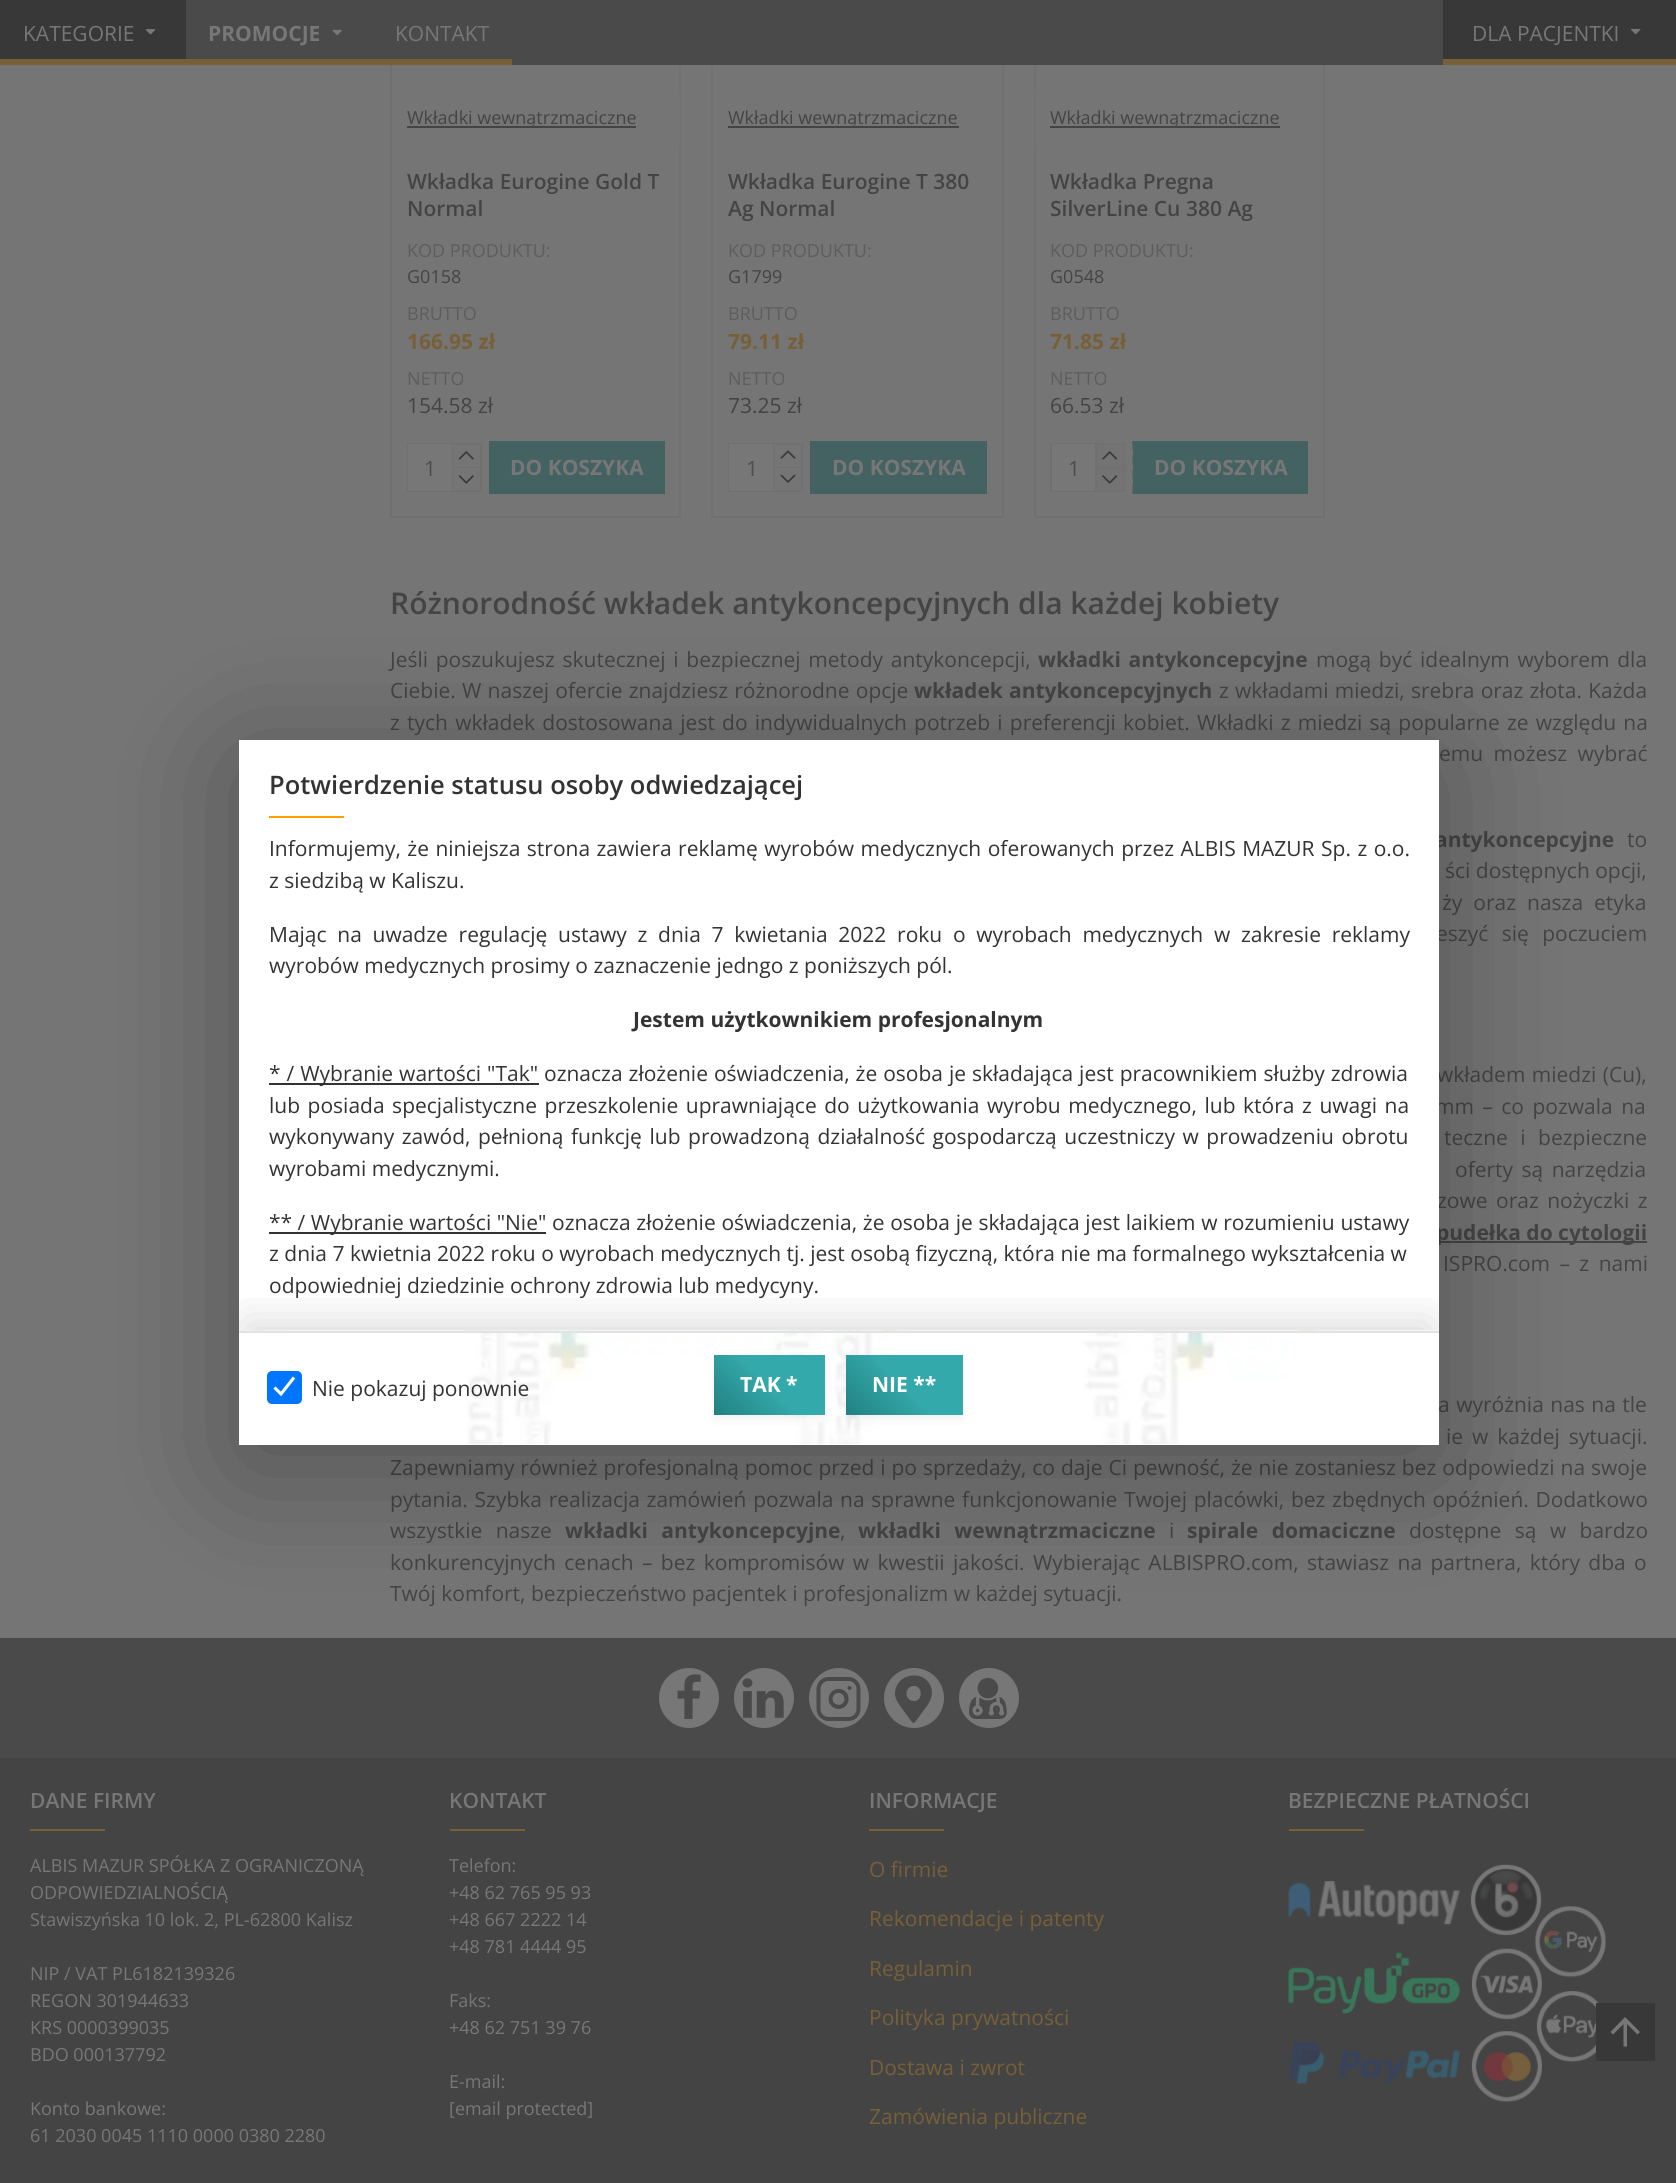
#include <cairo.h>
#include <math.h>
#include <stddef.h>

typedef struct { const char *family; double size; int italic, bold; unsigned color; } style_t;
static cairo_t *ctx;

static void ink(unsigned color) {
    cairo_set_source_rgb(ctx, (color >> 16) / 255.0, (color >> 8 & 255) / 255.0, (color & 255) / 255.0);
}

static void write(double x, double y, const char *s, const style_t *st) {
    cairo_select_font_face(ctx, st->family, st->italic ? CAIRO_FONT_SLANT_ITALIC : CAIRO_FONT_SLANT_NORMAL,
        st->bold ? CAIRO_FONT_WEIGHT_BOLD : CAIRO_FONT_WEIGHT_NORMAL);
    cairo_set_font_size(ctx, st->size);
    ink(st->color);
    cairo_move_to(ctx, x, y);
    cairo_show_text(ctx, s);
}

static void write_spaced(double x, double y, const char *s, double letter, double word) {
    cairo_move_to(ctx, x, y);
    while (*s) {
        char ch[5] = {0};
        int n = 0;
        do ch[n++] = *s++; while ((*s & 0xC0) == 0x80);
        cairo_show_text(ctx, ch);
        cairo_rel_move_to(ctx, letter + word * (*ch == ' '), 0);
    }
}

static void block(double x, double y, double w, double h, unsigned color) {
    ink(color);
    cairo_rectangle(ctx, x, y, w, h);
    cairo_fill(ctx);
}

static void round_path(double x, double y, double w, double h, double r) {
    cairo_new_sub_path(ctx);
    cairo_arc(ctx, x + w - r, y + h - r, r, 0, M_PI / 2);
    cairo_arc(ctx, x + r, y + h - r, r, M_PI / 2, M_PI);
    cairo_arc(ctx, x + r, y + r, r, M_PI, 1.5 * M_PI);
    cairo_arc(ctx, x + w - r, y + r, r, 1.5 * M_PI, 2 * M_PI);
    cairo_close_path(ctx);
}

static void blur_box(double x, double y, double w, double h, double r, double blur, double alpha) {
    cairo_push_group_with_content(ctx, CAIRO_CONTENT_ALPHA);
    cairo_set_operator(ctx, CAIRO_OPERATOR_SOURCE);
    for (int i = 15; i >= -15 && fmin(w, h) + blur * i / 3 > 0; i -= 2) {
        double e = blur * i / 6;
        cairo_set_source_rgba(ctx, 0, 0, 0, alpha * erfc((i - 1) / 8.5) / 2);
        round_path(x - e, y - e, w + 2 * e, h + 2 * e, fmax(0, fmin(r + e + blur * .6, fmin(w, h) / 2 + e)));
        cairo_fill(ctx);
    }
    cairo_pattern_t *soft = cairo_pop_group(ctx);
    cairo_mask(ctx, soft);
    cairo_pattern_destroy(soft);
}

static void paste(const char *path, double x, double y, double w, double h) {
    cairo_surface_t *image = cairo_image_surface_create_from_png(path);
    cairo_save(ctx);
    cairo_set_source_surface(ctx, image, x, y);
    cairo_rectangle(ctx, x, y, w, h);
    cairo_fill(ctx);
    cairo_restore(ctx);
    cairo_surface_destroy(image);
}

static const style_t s1 = {"Open Sans", 21, 0, 0, 0x777777};
static const style_t s2 = {"Open Sans", 21, 0, 1, 0x777777};
static const style_t s3 = {"Open Sans", 18, 0, 0, 0x444444};
static const style_t s4 = {"Open Sans SemiBold", 21, 0, 0, 0x444444};
static const style_t s5 = {"Open Sans", 18, 0, 0, 0x5e5d5e};
static const style_t s6 = {"Open Sans", 21, 0, 1, 0x775f38};
static const style_t s7 = {"Open Sans", 21, 0, 0, 0x444444};
static const style_t s8 = {"Open Sans", 21, 0, 0, 0x4d4d4d};
static const style_t s9 = {"Open Sans SemiBold", 30, 0, 0, 0x444444};
static const style_t s10 = {"Open Sans", 21, 0, 1, 0x444444};
static const style_t s11 = {"Open Sans SemiBold", 21, 0, 0, 0x777777};
static const style_t s12 = {"Open Sans", 18, 0, 0, 0x777777};
static const style_t s13 = {"Open Sans", 21, 0, 0, 0x775f38};
static const style_t s14 = {"Open Sans SemiBold", 25.5, 0, 0, 0x333333};
static const style_t s15 = {"Open Sans", 21, 0, 0, 0x333333};
static const style_t s16 = {"Open Sans", 21, 0, 1, 0x333333};
static const style_t s17 = {"Open Sans", 21, 0, 1, 0xffffff};

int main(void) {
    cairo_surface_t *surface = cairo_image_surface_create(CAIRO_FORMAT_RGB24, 1676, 2183);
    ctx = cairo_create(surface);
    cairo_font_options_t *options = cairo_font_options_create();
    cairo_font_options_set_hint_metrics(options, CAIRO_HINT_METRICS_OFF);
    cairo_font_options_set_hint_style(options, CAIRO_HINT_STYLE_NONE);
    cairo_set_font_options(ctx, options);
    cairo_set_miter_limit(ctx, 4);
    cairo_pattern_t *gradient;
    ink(0x757575);
    cairo_paint(ctx);
    cairo_rectangle(ctx, 391, -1, 289, 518);
    ink(0x707070);
    cairo_stroke(ctx);
    cairo_rectangle(ctx, 712, -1, 291, 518);
    cairo_stroke(ctx);
    cairo_rectangle(ctx, 1035, -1, 289, 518);
    cairo_stroke(ctx);
    block(186, 0, 1257, 65, 0x4a4a4a);
    block(0, 0, 186, 59, 0x383838);
    block(0, 59, 512, 6, 0x775f38);
    write(23, 41, "KATEGORIE", &s1);
    paste("pic1.png", 145, 29, 11, 6);
    write(208, 41, "PROMOCJE", &s2);
    paste("pic2.png", 332, 29, 10, 7);
    write(395, 41, "KONTAKT", &s1);
    block(1443, 0, 233, 59, 0x383838);
    block(1443, 59, 233, 6, 0x775f38);
    write(1472, 41, "DLA PACJENTKI", &s1);
    paste("pic3.png", 1631, 28, 10, 7);
    block(679, 90, 1, 56, 0x747474);
    block(407, 126, 229, 2, 0x444444);
    write(407, 124, "Wkładki wewnątrzmaciczne", &s3);
    write(407, 189, "Wkładka Eurogine Gold T", &s4);
    write(407, 216, "Normal", &s4);
    write(407, 257, "KOD PRODUKTU:", &s5);
    write(407, 283, "G0158", &s3);
    write(407, 320, "BRUTTO", &s5);
    write(407, 349, "166.95 zł", &s6);
    write(407, 385, "NETTO", &s5);
    write(407, 413, "154.58 zł", &s7);
    cairo_rectangle(ctx, 408, 444, 73, 47);
    ink(0x707070);
    cairo_stroke(ctx);
    block(408, 444, 44, 47, 0x777777);
    write(424, 476, "1", &s8);
    block(452, 444, 1, 47, 0x707070);
    block(453, 444, 27, 1, 0x737373);
    block(453, 467, 27, 1, 0x707070);
    paste("pic4.png", 458, 451, 16, 9);
    block(453, 490, 27, 1, 0x737373);
    paste("pic5.png", 458, 475, 16, 9);
    block(489, 441, 176, 53, 0x456262);
    write(510, 475, "DO KOSZYKA", &s2);
    block(728, 126, 231, 2, 0x444444);
    write(728, 124, "Wkładki wewnątrzmaciczne", &s3);
    write(728, 189, "Wkładka Eurogine T 380", &s4);
    write(728, 216, "Ag Normal", &s4);
    write(728, 257, "KOD PRODUKTU:", &s5);
    write(728, 283, "G1799", &s3);
    write(728, 320, "BRUTTO", &s5);
    write(728, 349, "79.11 zł", &s6);
    write(728, 385, "NETTO", &s5);
    write(728, 413, "73.25 zł", &s7);
    cairo_rectangle(ctx, 729, 444, 73, 47);
    ink(0x707070);
    cairo_stroke(ctx);
    block(729, 444, 44, 47, 0x777777);
    write(746, 476, "1", &s8);
    block(773, 444, 1, 47, 0x707070);
    block(774, 444, 27, 1, 0x737373);
    block(774, 467, 27, 1, 0x707070);
    paste("pic6.png", 780, 450, 16, 9);
    block(774, 490, 27, 1, 0x737373);
    paste("pic7.png", 780, 474, 16, 9);
    block(810, 441, 177, 53, 0x456262);
    write(832, 475, "DO KOSZYKA", &s2);
    block(1035, 90, 1, 56, 0x747474);
    block(1050, 126, 230, 2, 0x444444);
    write(1050, 124, "Wkładki wewnątrzmaciczne", &s3);
    write(1050, 189, "Wkładka Pregna", &s4);
    write(1050, 216, "SilverLine Cu 380 Ag", &s4);
    write(1050, 257, "KOD PRODUKTU:", &s5);
    write(1050, 283, "G0548", &s3);
    write(1050, 320, "BRUTTO", &s5);
    write(1050, 349, "71.85 zł", &s6);
    write(1050, 385, "NETTO", &s5);
    write(1050, 413, "66.53 zł", &s7);
    cairo_rectangle(ctx, 1051, 444, 73, 47);
    ink(0x707070);
    cairo_stroke(ctx);
    block(1052, 444, 43, 47, 0x777777);
    write(1068, 476, "1", &s8);
    block(1095, 444, 2, 47, 0x707070);
    block(1097, 444, 27, 23, 0x737373);
    block(1097, 467, 27, 1, 0x707070);
    paste("pic8.png", 1102, 451, 16, 9);
    block(1097, 468, 27, 23, 0x737373);
    paste("pic9.png", 1102, 475, 16, 9);
    block(1133, 441, 175, 53, 0x456262);
    cairo_new_path(ctx);
    cairo_move_to(ctx, 1132.5, 442.5);
    cairo_line_to(ctx, 1308, 442.5);
    cairo_set_line_width(ctx, 3);
    cairo_set_dash(ctx, (double[]){9, 6.13}, 2, 0);
    cairo_stroke(ctx);
    cairo_new_path(ctx);
    cairo_move_to(ctx, 1132.5, 492);
    cairo_line_to(ctx, 1308, 492);
    cairo_stroke(ctx);
    cairo_new_path(ctx);
    cairo_move_to(ctx, 1134, 441);
    cairo_line_to(ctx, 1134, 493.5);
    cairo_set_dash(ctx, (double[]){9, 5.5}, 2, 0);
    cairo_stroke(ctx);
    write(1154, 475, "DO KOSZYKA", &s2);
    write(390, 614, "Różnorodność wkładek antykoncepcyjnych dla każdej kobiety", &s9);
    cairo_select_font_face(ctx, "Open Sans", CAIRO_FONT_SLANT_NORMAL, CAIRO_FONT_WEIGHT_NORMAL);
    cairo_set_font_size(ctx, 21);
    write_spaced(390, 667, "Jeśli poszukujesz skutecznej i bezpiecznej metody antykoncepcji,", 0, 2.25);
    cairo_select_font_face(ctx, "Open Sans", CAIRO_FONT_SLANT_NORMAL, CAIRO_FONT_WEIGHT_BOLD);
    write_spaced(1038, 667, "wkładki antykoncepcyjne", 0, 2.25);
    cairo_select_font_face(ctx, "Open Sans", CAIRO_FONT_SLANT_NORMAL, CAIRO_FONT_WEIGHT_NORMAL);
    write_spaced(1316, 667, "mogą być idealnym wyborem dla", 0, 2.25);
    write_spaced(390, 698, "Ciebie. W naszej ofercie znajdziesz różnorodne opcje", 0, 0.75);
    cairo_select_font_face(ctx, "Open Sans", CAIRO_FONT_SLANT_NORMAL, CAIRO_FONT_WEIGHT_BOLD);
    write_spaced(914, 698, "wkładek antykoncepcyjnych", 0, 0.75);
    cairo_select_font_face(ctx, "Open Sans", CAIRO_FONT_SLANT_NORMAL, CAIRO_FONT_WEIGHT_NORMAL);
    write_spaced(1219, 698, "z wkładami miedzi, srebra oraz złota. Każda", 0, 0.75);
    write_spaced(390, 730, "z tych wkładek dostosowana jest do indywidualnych potrzeb i preferencji kobiet. Wkładki z miedzi są popularne ze względu na", 0, 1.75);
    write_spaced(1439, 761, "emu możesz wybrać", 0, 5);
    cairo_select_font_face(ctx, "Open Sans", CAIRO_FONT_SLANT_NORMAL, CAIRO_FONT_WEIGHT_BOLD);
    write_spaced(1435, 847, "antykoncepcyjne", 0, 7);
    write(1627, 847, "to", &s7);
    write(1445, 878, "ści dostępnych opcji,", &s7);
    write_spaced(1442, 910, "ży oraz nasza etyka", 0, 5.5);
    write_spaced(1436, 941, "eszyć się poczuciem", 0, 8);
    write_spaced(1437, 1082, "wkładem miedzi (Cu),", 0, 1);
    write_spaced(1435, 1114, "mm – co pozwala na", 0, 3);
    write_spaced(1444, 1145, "teczne i bezpieczne", 0, 7);
    write_spaced(1455, 1177, "oferty są narzędzia", 0, 3);
    write_spaced(1437, 1208, "zowe oraz nożyczki z", 0, 3);
    block(1439, 1241, 208, 2, 0x444444);
    write(1436, 1240, "pudełka do cytologii", &s10);
    cairo_select_font_face(ctx, "Open Sans", CAIRO_FONT_SLANT_NORMAL, CAIRO_FONT_WEIGHT_NORMAL);
    write_spaced(1443, 1271, "ISPRO.com – z nami", 0, 4);
    write_spaced(1438, 1412, "a wyróżnia nas na tle", 0, 1);
    write_spaced(1446, 1444, "ie w każdej sytuacji.", 0, 3.5);
    write_spaced(390, 1475, "Zapewniamy również profesjonalną pomoc przed i po sprzedaży, co daje Ci pewność, że nie zostaniesz bez odpowiedzi na swoje", 0, 0.5);
    write_spaced(390, 1507, "pytania. Szybka realizacja zamówień pozwala na sprawne funkcjonowanie Twojej placówki, bez zbędnych opóźnień. Dodatkowo", 0, 1.25);
    write_spaced(390, 1538, "wszystkie nasze", 0, 8);
    cairo_select_font_face(ctx, "Open Sans", CAIRO_FONT_SLANT_NORMAL, CAIRO_FONT_WEIGHT_BOLD);
    write_spaced(565, 1538, "wkładki antykoncepcyjne", 0, 8);
    write(840, 1538, ",", &s7);
    cairo_select_font_face(ctx, "Open Sans", CAIRO_FONT_SLANT_NORMAL, CAIRO_FONT_WEIGHT_BOLD);
    write_spaced(858, 1538, "wkładki wewnątrzmaciczne", 0, 8);
    write(1169, 1538, "i", &s7);
    cairo_select_font_face(ctx, "Open Sans", CAIRO_FONT_SLANT_NORMAL, CAIRO_FONT_WEIGHT_BOLD);
    write_spaced(1187, 1538, "spirale domaciczne", 0, 8);
    cairo_select_font_face(ctx, "Open Sans", CAIRO_FONT_SLANT_NORMAL, CAIRO_FONT_WEIGHT_NORMAL);
    write_spaced(1409, 1538, "dostępne są w bardzo", 0, 8);
    write_spaced(390, 1570, "konkurencyjnych cenach – bez kompromisów w kwestii jakości. Wybierając ALBISPRO.com, stawiasz na partnera, który dba o", 0, 2.9);
    write(390, 1601, "Twój komfort, bezpieczeństwo pacjentek i profesjonalizm w każdej sytuacji.", &s7);
    block(0, 1758, 1676, 425, 0x444444);
    block(0, 1638, 1676, 120, 0x4a4a4a);
    ink(0x777777);
    cairo_new_path(ctx);
    cairo_arc(ctx, 689, 1698, 30, 0, 2 * M_PI);
    cairo_fill(ctx);
    paste("pic10.png", 677, 1674, 24, 45);
    cairo_arc(ctx, 764, 1698, 30, 0, 2 * M_PI);
    cairo_fill(ctx);
    paste("pic11.png", 742, 1678, 42, 40);
    cairo_arc(ctx, 839, 1698, 30, 0, 2 * M_PI);
    cairo_fill(ctx);
    paste("pic12.png", 816, 1677, 45, 44);
    cairo_arc(ctx, 914, 1698, 30, 0, 2 * M_PI);
    cairo_fill(ctx);
    ink(0x4a4a4a);
    cairo_new_path(ctx);
    cairo_move_to(ctx, 932, 1692);
    cairo_curve_to(ctx, 930, 1668, 894, 1671, 895, 1695);
    cairo_curve_to(ctx, 896, 1702, 902, 1708, 906, 1714);
    cairo_curve_to(ctx, 915, 1726, 912, 1726, 921, 1714);
    cairo_curve_to(ctx, 926, 1707, 932, 1701, 932, 1692);
    cairo_close_path(ctx);
    cairo_move_to(ctx, 914, 1701);
    cairo_curve_to(ctx, 904, 1701, 904, 1686, 914, 1686);
    cairo_curve_to(ctx, 923, 1686, 923, 1701, 914, 1701);
    cairo_close_path(ctx);
    cairo_fill(ctx);
    ink(0x777777);
    cairo_arc(ctx, 989, 1698, 30, 0, 2 * M_PI);
    cairo_fill(ctx);
    paste("pic13.png", 969, 1677, 38, 42);
    write(30, 1808, "DANE FIRMY", &s11);
    block(30, 1829, 75, 2, 0x775f38);
    write(30, 1872, "ALBIS MAZUR SPÓŁKA Z OGRANICZONĄ", &s12);
    write(30, 1899, "ODPOWIEDZIALNOŚCIĄ", &s12);
    write(30, 1926, "Stawiszyńska 10 lok. 2, PL-62800 Kalisz", &s12);
    write(30, 1980, "NIP / VAT PL6182139326", &s12);
    write(30, 2007, "REGON 301944633", &s12);
    write(30, 2034, "KRS 0000399035", &s12);
    write(30, 2061, "BDO 000137792", &s12);
    write(30, 2115, "Konto bankowe:", &s12);
    write(30, 2142, "61 2030 0045 1110 0000 0380 2280", &s12);
    write(449, 1808, "KONTAKT", &s11);
    block(450, 1829, 75, 2, 0x775f38);
    write(449, 1872, "Telefon:", &s12);
    write(449, 1899, "+48 62 765 95 93", &s12);
    write(449, 1926, "+48 667 2222 14", &s12);
    write(449, 1953, "+48 781 4444 95", &s12);
    write(449, 2007, "Faks:", &s12);
    write(449, 2034, "+48 62 751 39 76", &s12);
    write(449, 2088, "E-mail:", &s12);
    write(449, 2115, "[email protected]", &s12);
    write(869, 1808, "INFORMACJE", &s11);
    block(869, 1829, 75, 2, 0x775f38);
    write(869, 1877, "O firmie", &s13);
    write(869, 1926, "Rekomendacje i patenty", &s13);
    write(869, 1976, "Regulamin", &s13);
    write(869, 2025, "Polityka prywatności", &s13);
    write(869, 2075, "Dostawa i zwrot", &s13);
    write(869, 2124, "Zamówienia publiczne", &s13);
    write(1288, 1808, "BEZPIECZNE PŁATNOŚCI", &s11);
    block(1289, 1829, 75, 2, 0x775f38);
    paste("pic14.png", 1288, 1864, 318, 238);
    ink(0x000000);
    blur_box(239, 762, 1200, 705, 0, 67.5, 0.3);
    block(239, 740, 1200, 705, 0xffffff);
    write(269, 794, "Potwierdzenie statusu osoby odwiedzającej", &s14);
    block(269, 816, 75, 2, 0xff9f00);
    cairo_select_font_face(ctx, "Open Sans", CAIRO_FONT_SLANT_NORMAL, CAIRO_FONT_WEIGHT_NORMAL);
    cairo_set_font_size(ctx, 21);
    ink(0x333333);
    write_spaced(269, 856, "Informujemy, że niniejsza strona zawiera reklamę wyrobów medycznych oferowanych przez ALBIS MAZUR Sp. z o.o.", 0, 1);
    write(269, 888, "z siedzibą w Kaliszu.", &s15);
    write_spaced(269, 942, "Mając na uwadze regulację ustawy z dnia 7 kwietania 2022 roku o wyrobach medycznych w zakresie reklamy", 0, 5.25);
    write(269, 973, "wyrobów medycznych prosimy o zaznaczenie jedngo z poniższych pól.", &s15);
    write(633, 1027, "Jestem użytkownikiem profesjonalnym", &s16);
    block(269, 1083, 270, 2, 0x333333);
    cairo_select_font_face(ctx, "Open Sans", CAIRO_FONT_SLANT_NORMAL, CAIRO_FONT_WEIGHT_NORMAL);
    write_spaced(269, 1081, "* / Wybranie wartości \"Tak\"", 0, 0.5);
    write_spaced(544, 1081, "oznacza złożenie oświadczenia, że osoba je składająca jest pracownikiem służby zdrowia", 0, 0.5);
    write_spaced(269, 1113, "lub posiada specjalistyczne przeszkolenie uprawniające do użytkowania wyrobu medycznego, lub która z uwagi na", 0, 2.1);
    write_spaced(269, 1144, "wykonywany zawód, pełnioną funkcję lub prowadzoną działalność gospodarczą uczestniczy w prowadzeniu obrotu", 0, 2.1);
    write(269, 1176, "wyrobami medycznymi.", &s15);
    block(269, 1232, 277, 2, 0x333333);
    write(269, 1230, "** / Wybranie wartości \"Nie\"", &s15);
    write_spaced(552, 1230, "oznacza złożenie oświadczenia, że osoba je składająca jest laikiem w rozumieniu ustawy", 0, 0.25);
    write(269, 1261, "z dnia 7 kwietnia 2022 roku o wyrobach medycznych tj. jest osobą fizyczną, która nie ma formalnego wykształcenia w", &s15);
    write(269, 1293, "odpowiedniej dziedzinie ochrony zdrowia lub medycyny.", &s15);
    cairo_save(ctx);
    cairo_rectangle(ctx, 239, 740, 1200, 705);
    cairo_clip(ctx);
    cairo_rectangle(ctx, 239, 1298, 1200, 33);
    cairo_clip(ctx);
    ink(0x000000);
    blur_box(246, 1323, 1185, 99, 0, 22.5, 0.15);
    cairo_restore(ctx);
    paste("pic15.png", 245, 1330, 1194, 115);
    block(239, 1331, 1200, 2, 0xe2e2e2);
    ink(0x0075ff);
    round_path(267, 1371, 35, 33, 5);
    cairo_fill(ctx);
    cairo_new_path(ctx);
    cairo_move_to(ctx, 274.5, 1387.5);
    cairo_line_to(ctx, 281, 1394);
    cairo_line_to(ctx, 294, 1377.5);
    ink(0xffffff);
    cairo_set_line_width(ctx, 3.1);
    cairo_set_dash(ctx, NULL, 0, 0);
    cairo_stroke(ctx);
    write(312, 1396, "Nie pokazuj ponownie", &s15);
    ink(0x000000);
    blur_box(714, 1359, 111, 60, 0, 4.5, 0.05);
    gradient = cairo_pattern_create_linear(727, 1427, 812, 1342);
    cairo_pattern_add_color_stop_rgba(gradient, 0, 0.133, 0.502, 0.506, 1);
    cairo_pattern_add_color_stop_rgba(gradient, 0.5, 0.204, 0.663, 0.671, 1);
    cairo_set_source(ctx, gradient);
    cairo_pattern_destroy(gradient);
    cairo_rectangle(ctx, 714, 1355, 111, 60);
    cairo_fill(ctx);
    write(740, 1392, "TAK *", &s17);
    ink(0x000000);
    blur_box(846, 1359, 117, 60, 0, 4.5, 0.05);
    gradient = cairo_pattern_create_linear(860, 1429, 949, 1340);
    cairo_pattern_add_color_stop_rgba(gradient, 0, 0.133, 0.502, 0.506, 1);
    cairo_pattern_add_color_stop_rgba(gradient, 0.5, 0.204, 0.663, 0.671, 1);
    cairo_set_source(ctx, gradient);
    cairo_pattern_destroy(gradient);
    cairo_rectangle(ctx, 846, 1355, 117, 60);
    cairo_fill(ctx);
    write(872, 1392, "NIE **", &s17);
    block(1596, 2003, 59, 58, 0x383838);
    ink(0x777777);
    cairo_new_path(ctx);
    cairo_move_to(ctx, 1610.5, 2032);
    cairo_line_to(ctx, 1625, 2017);
    cairo_line_to(ctx, 1640, 2032);
    cairo_line_to(ctx, 1637.5, 2034.5);
    cairo_line_to(ctx, 1627, 2024);
    cairo_line_to(ctx, 1627, 2046.5);
    cairo_line_to(ctx, 1623.5, 2046.5);
    cairo_line_to(ctx, 1623.5, 2024);
    cairo_line_to(ctx, 1613, 2034.5);
    cairo_close_path(ctx);
    cairo_fill(ctx);
    cairo_surface_write_to_png(surface, "screenshot.png");
    cairo_font_options_destroy(options);
    cairo_destroy(ctx);
    cairo_surface_destroy(surface);
    return 0;
}
